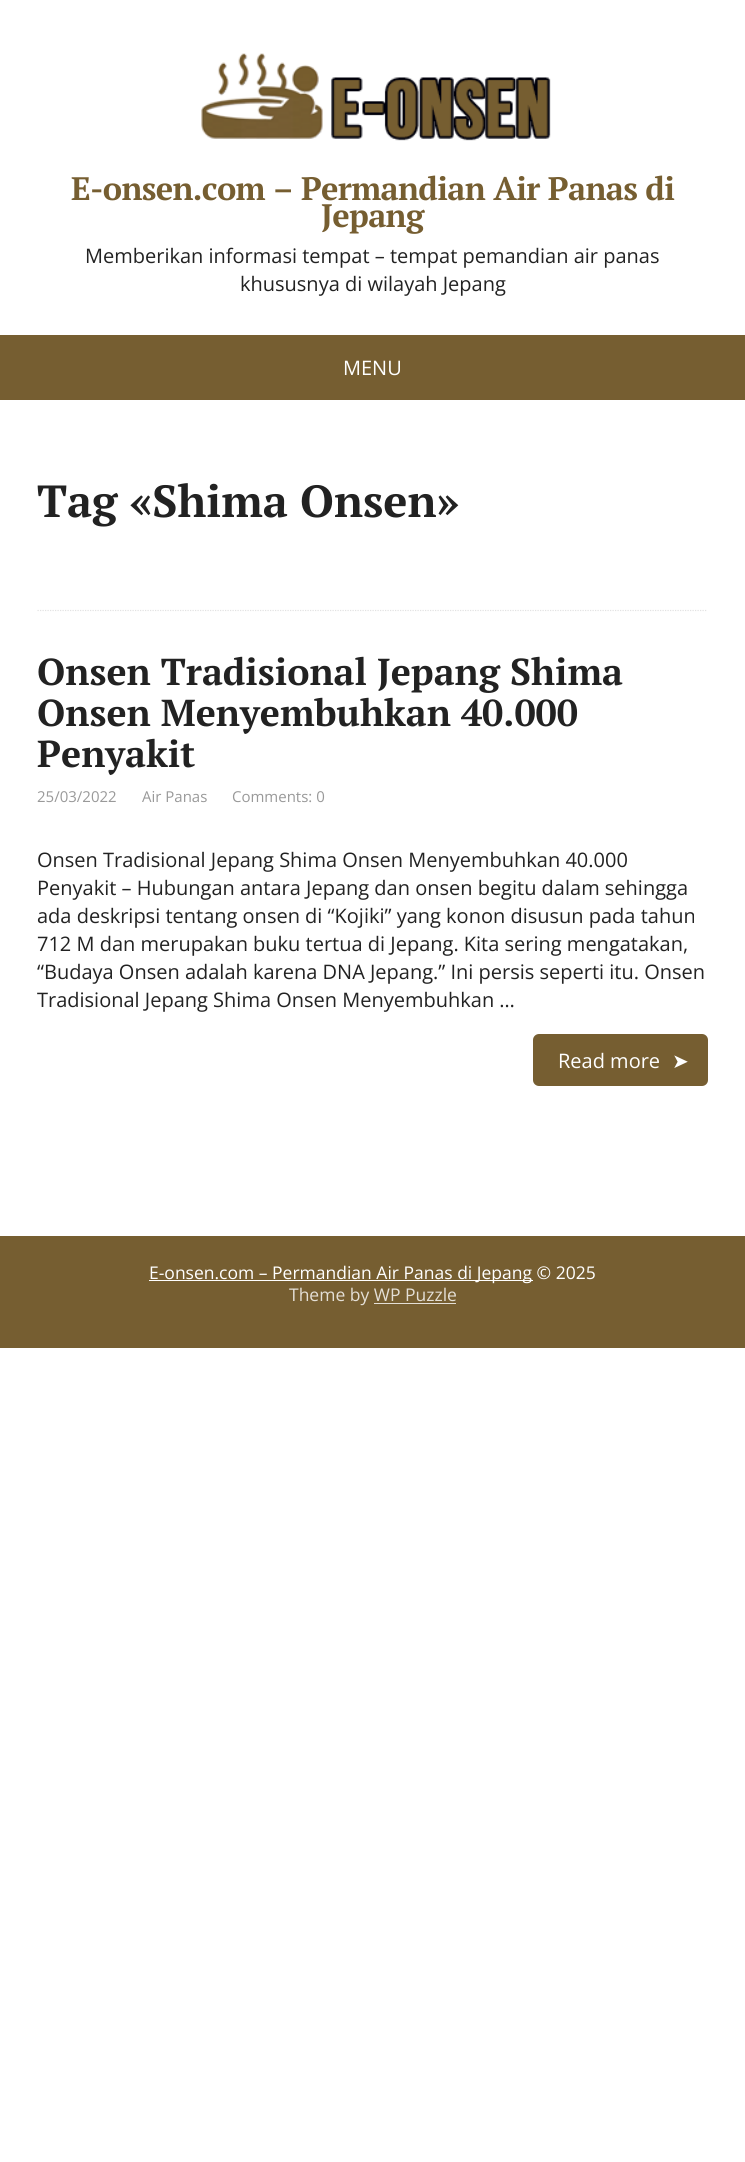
#include <cairo.h>
#include <math.h>
#include <stddef.h>

typedef struct { const char *family; double size; int italic, bold; unsigned color; } style_t;
static cairo_t *ctx;

static void ink(unsigned color) {
    cairo_set_source_rgb(ctx, (color >> 16) / 255.0, (color >> 8 & 255) / 255.0, (color & 255) / 255.0);
}

static void write(double x, double y, const char *s, const style_t *st) {
    cairo_select_font_face(ctx, st->family, st->italic ? CAIRO_FONT_SLANT_ITALIC : CAIRO_FONT_SLANT_NORMAL,
        st->bold ? CAIRO_FONT_WEIGHT_BOLD : CAIRO_FONT_WEIGHT_NORMAL);
    cairo_set_font_size(ctx, st->size);
    ink(st->color);
    cairo_move_to(ctx, x, y);
    cairo_show_text(ctx, s);
}

static void write_spaced(double x, double y, const char *s, double letter, double word) {
    cairo_move_to(ctx, x, y);
    while (*s) {
        char ch[5] = {0};
        int n = 0;
        do ch[n++] = *s++; while ((*s & 0xC0) == 0x80);
        cairo_show_text(ctx, ch);
        cairo_rel_move_to(ctx, letter + word * (*ch == ' '), 0);
    }
}

static void block(double x, double y, double w, double h, unsigned color) {
    ink(color);
    cairo_rectangle(ctx, x, y, w, h);
    cairo_fill(ctx);
}

static void round_path(double x, double y, double w, double h, double r) {
    cairo_new_sub_path(ctx);
    cairo_arc(ctx, x + w - r, y + h - r, r, 0, M_PI / 2);
    cairo_arc(ctx, x + r, y + h - r, r, M_PI / 2, M_PI);
    cairo_arc(ctx, x + r, y + r, r, M_PI, 1.5 * M_PI);
    cairo_arc(ctx, x + w - r, y + r, r, 1.5 * M_PI, 2 * M_PI);
    cairo_close_path(ctx);
}

static void paste(const char *path, double x, double y, double w, double h) {
    cairo_surface_t *image = cairo_image_surface_create_from_png(path);
    cairo_save(ctx);
    cairo_set_source_surface(ctx, image, x, y);
    cairo_rectangle(ctx, x, y, w, h);
    cairo_fill(ctx);
    cairo_restore(ctx);
    cairo_surface_destroy(image);
}

static const style_t s1 = {"Open Sans", 20, 0, 0, 0x222222};
static const style_t s2 = {"Open Sans", 20, 0, 0, 0xffffff};
static const style_t s3 = {"PT Serif", 45, 0, 1, 0x222222};
static const style_t s4 = {"PT Serif", 37.5, 0, 1, 0x222222};
static const style_t s5 = {"Open Sans", 15, 0, 0, 0x999999};
static const style_t s6 = {"DejaVu Sans", 20, 0, 0, 0xffffff};
static const style_t s7 = {"Open Sans", 17.5, 0, 0, 0xffffff};
static const style_t s8 = {"Open Sans", 17.5, 0, 0, 0xe4dfd6};

int main(void) {
    cairo_surface_t *surface = cairo_image_surface_create(CAIRO_FORMAT_RGB24, 745, 2162);
    ctx = cairo_create(surface);
    cairo_font_options_t *options = cairo_font_options_create();
    cairo_font_options_set_hint_metrics(options, CAIRO_HINT_METRICS_OFF);
    cairo_font_options_set_hint_style(options, CAIRO_HINT_STYLE_NONE);
    cairo_set_font_options(ctx, options);
    cairo_set_miter_limit(ctx, 4);
    ink(0xffffff);
    cairo_paint(ctx);
    paste("pic1.png", 201, 53, 350, 88);
    cairo_select_font_face(ctx, "PT Serif", CAIRO_FONT_SLANT_NORMAL, CAIRO_FONT_WEIGHT_BOLD);
    cairo_set_font_size(ctx, 32.5);
    ink(0x765e31);
    write_spaced(71, 200, "E-onsen.com – Permandian Air Panas di", -0.65, 0);
    write_spaced(321, 227, "Jepang", -0.65, 0);
    write(85, 263, "Memberikan informasi tempat – tempat pemandian air panas", &s1);
    write(240, 291, "khususnya di wilayah Jepang", &s1);
    block(0, 335, 745, 65, 0x765e31);
    write(343, 375, "MENU", &s2);
    cairo_new_path(ctx);
    cairo_move_to(ctx, 37.5, 610.5);
    cairo_line_to(ctx, 707.5, 610.5);
    ink(0xe2e2e2);
    cairo_set_line_width(ctx, 1.2);
    cairo_set_dash(ctx, (double[]){1.25, 1.25}, 2, 0);
    cairo_stroke(ctx);
    write(37, 517, "Tag «Shima Onsen»", &s3);
    write(37, 685, "Onsen Tradisional Jepang Shima", &s4);
    write(37, 726, "Onsen Menyembuhkan 40.000", &s4);
    write(37, 767, "Penyakit", &s4);
    write(37, 802, "25/03/2022", &s5);
    write(142, 802, "Air Panas", &s5);
    write(232, 802, "Comments: 0", &s5);
    write(37, 867, "Onsen Tradisional Jepang Shima Onsen Menyembuhkan 40.000", &s1);
    write(37, 895, "Penyakit – Hubungan antara Jepang dan onsen begitu dalam sehingga", &s1);
    write(37, 923, "ada deskripsi tentang onsen di “Kojiki” yang konon disusun pada tahun", &s1);
    write(37, 951, "712 M dan merupakan buku tertua di Jepang. Kita sering mengatakan,", &s1);
    write(37, 979, "“Budaya Onsen adalah karena DNA Jepang.” Ini persis seperti itu. Onsen", &s1);
    write(37, 1007, "Tradisional Jepang Shima Onsen Menyembuhkan …", &s1);
    ink(0x765e31);
    round_path(533, 1034, 175, 52, 6);
    cairo_fill(ctx);
    write(558, 1068, "Read more", &s2);
    write(672, 1068, "➤", &s6);
    block(0, 1236, 745, 112, 0x765e31);
    block(149, 1280, 384, 1, 0xffffff);
    write(149, 1279, "E-onsen.com – Permandian Air Panas di Jepang © 2025", &s7);
    write(289, 1301, "Theme by WP Puzzle", &s8);
    block(374, 1303, 82, 1, 0xe4dfd6);
    cairo_surface_write_to_png(surface, "screenshot.png");
    cairo_font_options_destroy(options);
    cairo_destroy(ctx);
    cairo_surface_destroy(surface);
    return 0;
}
